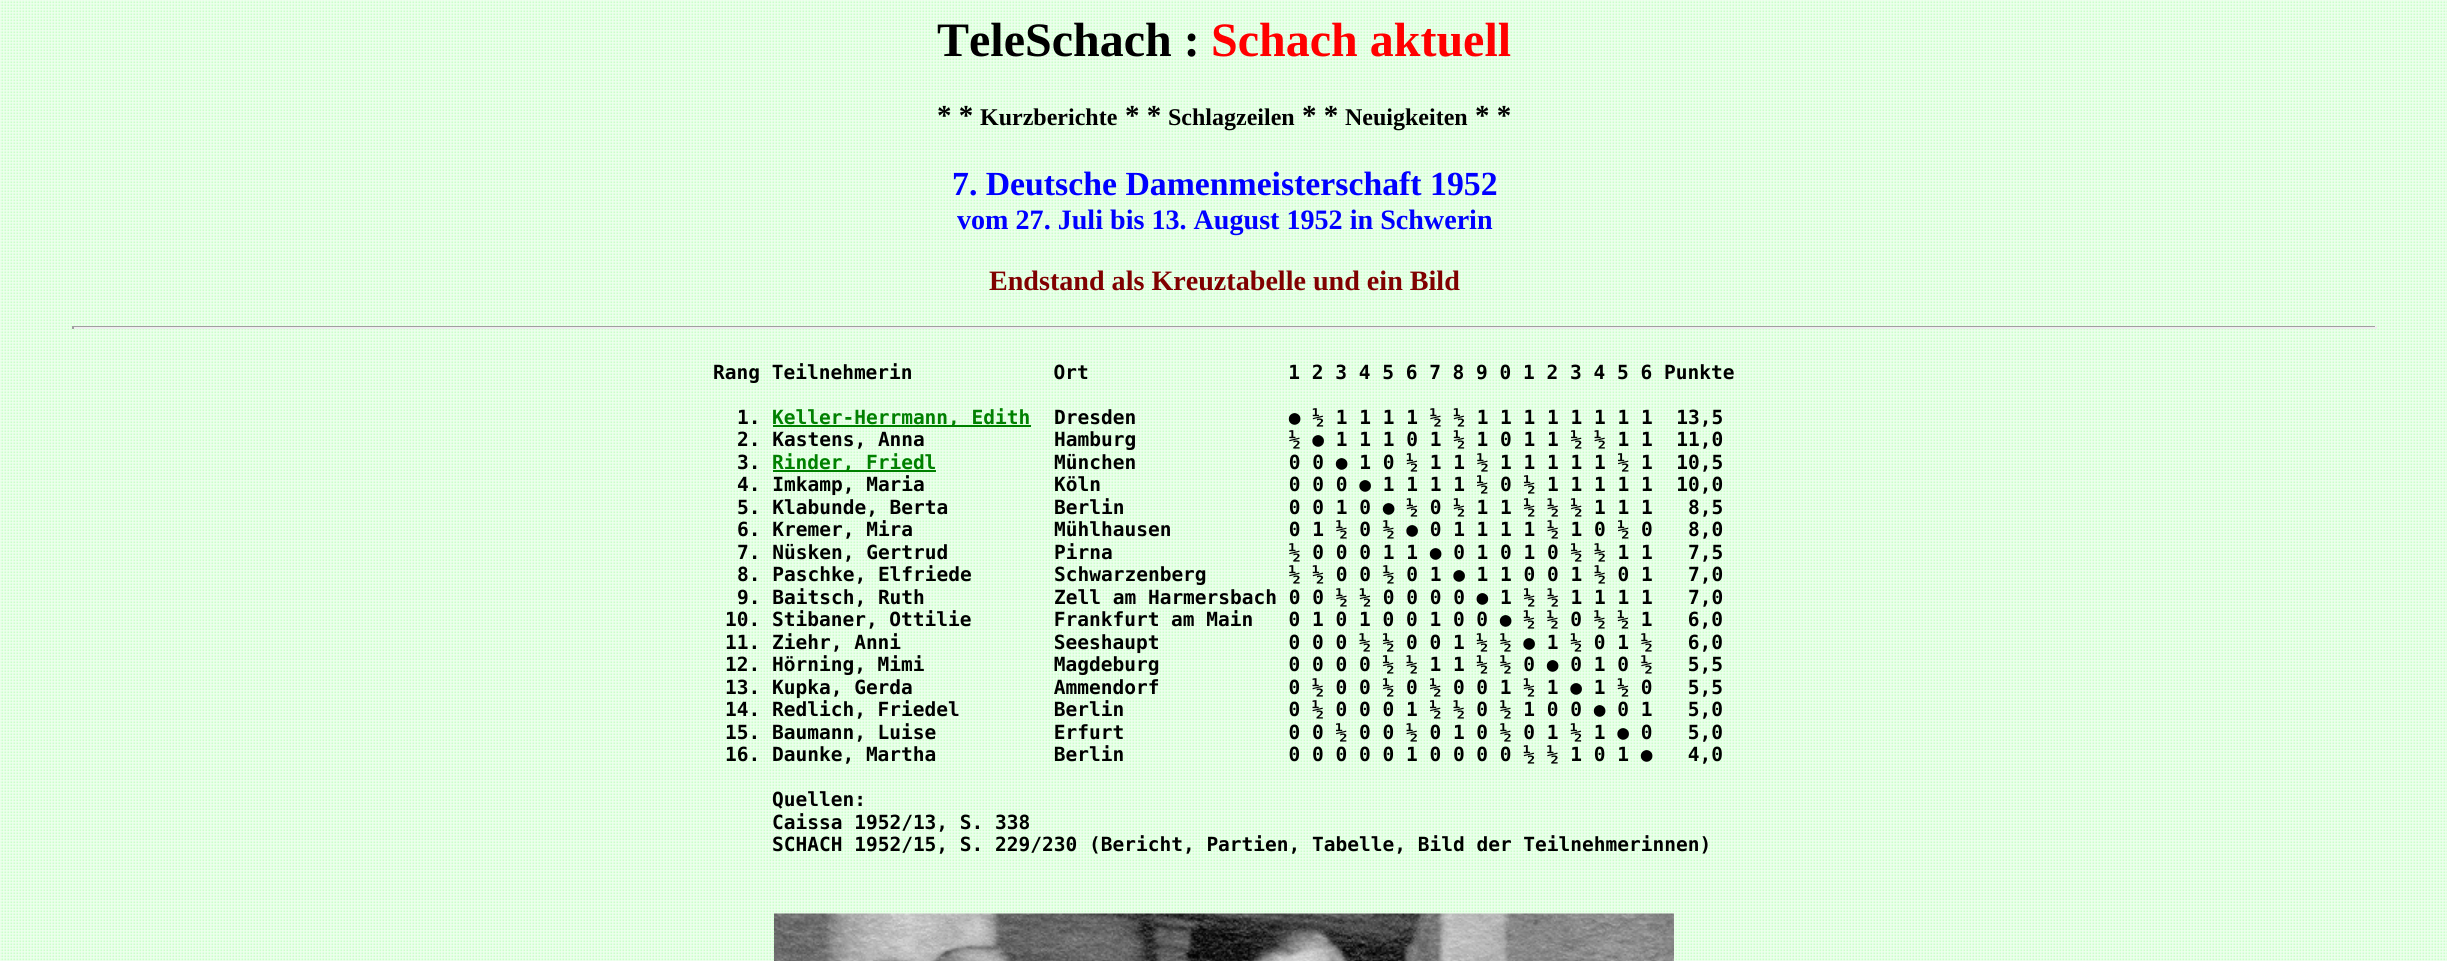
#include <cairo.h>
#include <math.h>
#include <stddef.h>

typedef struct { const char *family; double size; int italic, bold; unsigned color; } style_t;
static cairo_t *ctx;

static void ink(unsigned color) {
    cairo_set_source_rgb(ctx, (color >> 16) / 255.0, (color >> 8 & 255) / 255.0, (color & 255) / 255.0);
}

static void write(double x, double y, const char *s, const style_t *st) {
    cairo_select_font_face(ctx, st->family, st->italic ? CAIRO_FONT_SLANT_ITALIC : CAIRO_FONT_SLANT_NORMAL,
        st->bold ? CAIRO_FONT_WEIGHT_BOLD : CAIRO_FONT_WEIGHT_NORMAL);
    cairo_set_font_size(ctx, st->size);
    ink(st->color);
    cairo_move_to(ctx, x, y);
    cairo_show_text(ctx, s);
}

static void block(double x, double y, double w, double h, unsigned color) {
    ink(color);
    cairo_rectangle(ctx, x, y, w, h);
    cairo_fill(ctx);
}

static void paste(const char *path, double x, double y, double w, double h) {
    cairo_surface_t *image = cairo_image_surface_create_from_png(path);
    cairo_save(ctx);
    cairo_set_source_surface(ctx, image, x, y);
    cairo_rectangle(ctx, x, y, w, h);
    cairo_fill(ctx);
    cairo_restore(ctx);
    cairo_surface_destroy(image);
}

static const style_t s1 = {"Liberation Serif", 48, 0, 1, 0x000000};
static const style_t s2 = {"Liberation Serif", 48, 0, 1, 0xff0000};
static const style_t s3 = {"Liberation Serif", 29, 0, 1, 0x000000};
static const style_t s4 = {"Liberation Serif", 24, 0, 1, 0x000000};
static const style_t s5 = {"Liberation Serif", 33.75, 0, 1, 0x0000ff};
static const style_t s6 = {"Liberation Serif", 28.1, 0, 1, 0x0000ff};
static const style_t s7 = {"Liberation Serif", 28.1, 0, 1, 0x800000};
static const style_t s8 = {"DejaVu Sans Mono", 19.5, 0, 1, 0x000000};
static const style_t s9 = {"DejaVu Sans Mono", 19.5, 0, 1, 0x008000};

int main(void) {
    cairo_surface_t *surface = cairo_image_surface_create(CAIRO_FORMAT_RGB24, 2447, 961);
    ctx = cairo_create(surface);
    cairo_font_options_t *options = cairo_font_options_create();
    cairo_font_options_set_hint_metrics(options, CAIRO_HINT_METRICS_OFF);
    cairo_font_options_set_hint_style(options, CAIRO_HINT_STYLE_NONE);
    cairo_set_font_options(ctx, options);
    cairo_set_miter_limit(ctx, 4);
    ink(0xffffff);
    cairo_paint(ctx);
    paste("pic1.png", 0, 0, 2447, 961);
    write(937, 56, "TeleSchach :", &s1);
    write(1211, 56, "Schach aktuell", &s2);
    write(937, 125, "* *", &s3);
    write(980, 125, "Kurzberichte", &s4);
    write(1125, 125, "* *", &s3);
    write(1168, 125, "Schlagzeilen", &s4);
    write(1302, 125, "* *", &s3);
    write(1345, 125, "Neuigkeiten", &s4);
    write(1475, 125, "* *", &s3);
    write(952, 195, "7. Deutsche Damenmeisterschaft 1952", &s5);
    write(957, 229, "vom 27. Juli bis 13. August 1952 in Schwerin", &s6);
    write(989, 290, "Endstand als Kreuztabelle und ein Bild", &s7);
    block(72, 326, 2304, 1, 0x9f9f9f);
    block(2375, 326, 2, 3, 0xeeeeee);
    block(72, 327, 2304, 2, 0xeeeeee);
    block(72, 326, 2, 3, 0x9f9f9f);
    write(713, 379, "Rang Teilnehmerin            Ort                 1 2 3 4 5 6 7 8 9 0 1 2 3 4 5 6 Punkte", &s8);
    write(737, 424, "1.", &s8);
    block(773, 425, 258, 2, 0x008000);
    write(772, 424, "Keller-Herrmann, Edith", &s9);
    write(1054, 424, "Dresden             ● ½ 1 1 1 1 ½ ½ 1 1 1 1 1 1 1 1  13,5", &s8);
    write(737, 446, "2. Kastens, Anna           Hamburg             ½ ● 1 1 1 0 1 ½ 1 0 1 1 ½ ½ 1 1  11,0", &s8);
    write(737, 469, "3.", &s8);
    block(773, 470, 163, 2, 0x008000);
    write(772, 469, "Rinder, Friedl", &s9);
    write(1054, 469, "München             0 0 ● 1 0 ½ 1 1 ½ 1 1 1 1 1 ½ 1  10,5", &s8);
    write(737, 491, "4. Imkamp, Maria           Köln                0 0 0 ● 1 1 1 1 ½ 0 ½ 1 1 1 1 1  10,0", &s8);
    write(737, 514, "5. Klabunde, Berta         Berlin              0 0 1 0 ● ½ 0 ½ 1 1 ½ ½ ½ 1 1 1   8,5", &s8);
    write(737, 536, "6. Kremer, Mira            Mühlhausen          0 1 ½ 0 ½ ● 0 1 1 1 1 ½ 1 0 ½ 0   8,0", &s8);
    write(737, 559, "7. Nüsken, Gertrud         Pirna               ½ 0 0 0 1 1 ● 0 1 0 1 0 ½ ½ 1 1   7,5", &s8);
    write(737, 581, "8. Paschke, Elfriede       Schwarzenberg       ½ ½ 0 0 ½ 0 1 ● 1 1 0 0 1 ½ 0 1   7,0", &s8);
    write(737, 604, "9. Baitsch, Ruth           Zell am Harmersbach 0 0 ½ ½ 0 0 0 0 ● 1 ½ ½ 1 1 1 1   7,0", &s8);
    write(725, 626, "10. Stibaner, Ottilie       Frankfurt am Main   0 1 0 1 0 0 1 0 0 ● ½ ½ 0 ½ ½ 1   6,0", &s8);
    write(725, 649, "11. Ziehr, Anni             Seeshaupt           0 0 0 ½ ½ 0 0 1 ½ ½ ● 1 ½ 0 1 ½   6,0", &s8);
    write(725, 671, "12. Hörning, Mimi           Magdeburg           0 0 0 0 ½ ½ 1 1 ½ ½ 0 ● 0 1 0 ½   5,5", &s8);
    write(725, 694, "13. Kupka, Gerda            Ammendorf           0 ½ 0 0 ½ 0 ½ 0 0 1 ½ 1 ● 1 ½ 0   5,5", &s8);
    write(725, 716, "14. Redlich, Friedel        Berlin              0 ½ 0 0 0 1 ½ ½ 0 ½ 1 0 0 ● 0 1   5,0", &s8);
    write(725, 739, "15. Baumann, Luise          Erfurt              0 0 ½ 0 0 ½ 0 1 0 ½ 0 1 ½ 1 ● 0   5,0", &s8);
    write(725, 761, "16. Daunke, Martha          Berlin              0 0 0 0 0 1 0 0 0 0 ½ ½ 1 0 1 ●   4,0", &s8);
    write(772, 806, "Quellen:", &s8);
    write(772, 829, "Caissa 1952/13, S. 338", &s8);
    write(772, 851, "SCHACH 1952/15, S. 229/230 (Bericht, Partien, Tabelle, Bild der Teilnehmerinnen)", &s8);
    paste("pic2.png", 774, 913, 900, 48);
    cairo_surface_write_to_png(surface, "screenshot.png");
    cairo_font_options_destroy(options);
    cairo_destroy(ctx);
    cairo_surface_destroy(surface);
    return 0;
}
